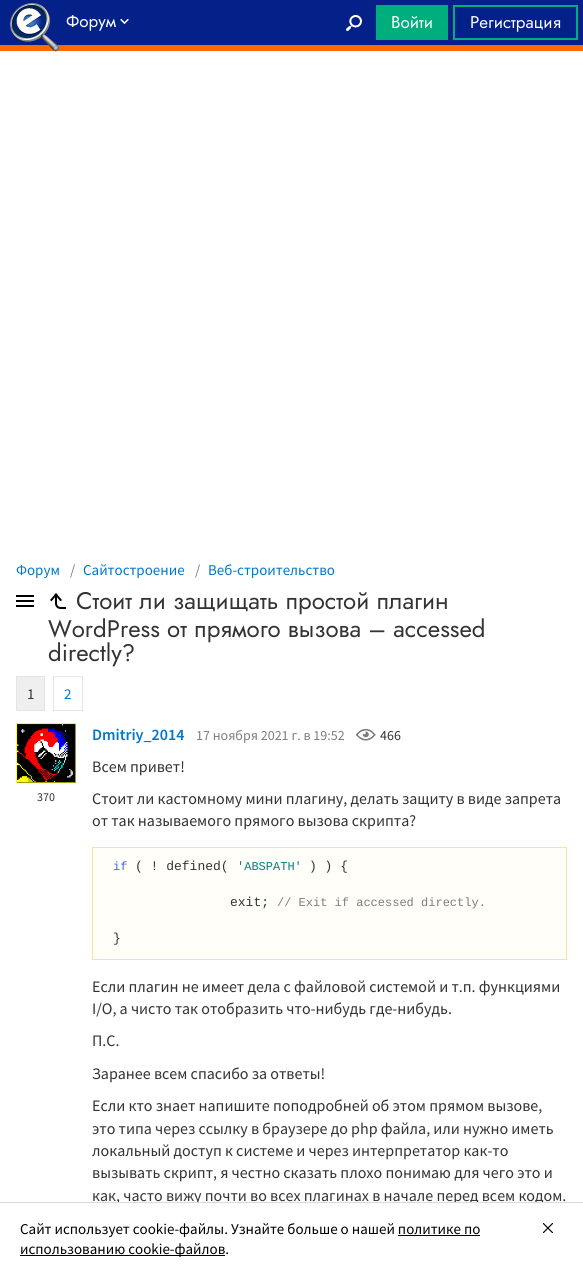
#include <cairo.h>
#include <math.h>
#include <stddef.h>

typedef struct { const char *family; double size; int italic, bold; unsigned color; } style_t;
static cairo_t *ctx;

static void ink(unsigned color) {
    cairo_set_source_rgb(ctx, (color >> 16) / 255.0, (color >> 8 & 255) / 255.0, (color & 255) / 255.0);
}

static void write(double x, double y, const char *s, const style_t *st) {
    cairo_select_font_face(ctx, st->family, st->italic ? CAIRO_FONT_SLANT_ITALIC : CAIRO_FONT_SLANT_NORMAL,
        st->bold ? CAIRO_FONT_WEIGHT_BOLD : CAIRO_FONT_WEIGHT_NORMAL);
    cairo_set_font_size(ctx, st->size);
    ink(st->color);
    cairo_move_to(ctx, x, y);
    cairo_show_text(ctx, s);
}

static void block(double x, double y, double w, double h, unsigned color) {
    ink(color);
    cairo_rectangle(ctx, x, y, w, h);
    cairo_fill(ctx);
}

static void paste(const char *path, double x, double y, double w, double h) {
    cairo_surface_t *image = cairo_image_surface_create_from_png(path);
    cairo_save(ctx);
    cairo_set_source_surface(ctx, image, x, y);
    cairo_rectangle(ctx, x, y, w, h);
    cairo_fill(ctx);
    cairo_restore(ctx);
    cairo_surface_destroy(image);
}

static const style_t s1 = {"Jost", 17, 0, 0, 0xffffff};
static const style_t s2 = {"Source Sans Pro", 15, 0, 0, 0x0077cc};
static const style_t s3 = {"Source Sans Pro", 15, 0, 0, 0x7d7d7d};
static const style_t s4 = {"Jost", 24, 0, 0, 0x333333};
static const style_t s5 = {"Source Sans Pro", 15, 0, 0, 0x333333};
static const style_t s6 = {"Source Sans Pro SemiBold", 16, 0, 0, 0x0077cc};
static const style_t s7 = {"Source Sans Pro", 14, 0, 0, 0x7d7d7d};
static const style_t s8 = {"Source Sans Pro", 14, 0, 0, 0x333333};
static const style_t s9 = {"Source Sans Pro", 12, 0, 0, 0x333333};
static const style_t s10 = {"Source Sans Pro", 16, 0, 0, 0x333333};
static const style_t s11 = {"Liberation Mono", 12, 0, 0, 0x3d69e1};
static const style_t s12 = {"Liberation Mono", 13, 0, 0, 0x333333};
static const style_t s13 = {"Liberation Mono", 12, 0, 0, 0x008080};
static const style_t s14 = {"Liberation Mono", 12, 0, 0, 0x7d7d7d};
static const style_t s15 = {"Source Sans Pro", 15, 0, 0, 0x000000};

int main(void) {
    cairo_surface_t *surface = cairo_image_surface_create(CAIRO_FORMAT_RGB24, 583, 1274);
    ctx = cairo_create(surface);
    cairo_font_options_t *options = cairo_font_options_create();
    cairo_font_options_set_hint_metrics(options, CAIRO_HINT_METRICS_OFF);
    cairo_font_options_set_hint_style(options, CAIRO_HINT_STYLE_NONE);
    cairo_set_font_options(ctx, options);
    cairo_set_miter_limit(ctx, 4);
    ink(0xffffff);
    cairo_paint(ctx);
    block(0, 0, 583, 45, 0x042189);
    block(0, 45, 583, 6, 0xff6a00);
    paste("pic1.png", 10, 3, 49, 49);
    write(66, 27, "Форум", &s1);
    paste("pic2.png", 120, 19, 9, 5);
    paste("pic3.png", 346, 15, 16, 16);
    block(376, 5, 72, 35, 0x00ad7c);
    write(391, 28, "Войти", &s1);
    cairo_rectangle(ctx, 454, 6, 123, 33);
    ink(0x00ad7c);
    cairo_stroke(ctx);
    write(470, 28, "Регистрация", &s1);
    write(16, 575, "Форум", &s2);
    write(70, 575, "/", &s3);
    write(83, 575, "Сайтостроение", &s2);
    write(195, 575, "/", &s3);
    write(208, 575, "Веб-строительство", &s2);
    block(16, 595, 18, 2, 0x000000);
    block(16, 600, 18, 2, 0x000000);
    block(16, 605, 18, 2, 0x000000);
    paste("pic4.png", 50, 593, 16, 16);
    write(76, 609, "Стоит ли защищать простой плагин", &s4);
    write(48, 637, "WordPress от прямого вызова – accessed", &s4);
    write(48, 661, "directly?", &s4);
    ink(0xefefef);
    cairo_rectangle(ctx, 16.5, 676.5, 28, 34);
    cairo_fill_preserve(ctx);
    ink(0xe5e5e5);
    cairo_set_line_width(ctx, 1);
    cairo_stroke(ctx);
    write(27, 699, "1", &s5);
    cairo_rectangle(ctx, 53.5, 676.5, 29, 34);
    ink(0xe5e5e5);
    cairo_stroke(ctx);
    write(64, 699, "2", &s2);
    write(92, 740, "Dmitriy_2014", &s6);
    write(196, 740, "17 ноября 2021 г. в 19:52", &s7);
    paste("pic5.png", 355, 728, 21, 13);
    write(380, 740, "466", &s8);
    paste("pic6.png", 16, 723, 60, 60);
    write(37, 801, "370", &s9);
    write(92, 772, "Всем привет!", &s10);
    write(92, 804, "Стоит ли кастомному мини плагину, делать защиту в виде запрета", &s10);
    write(92, 826, "от так называемого прямого вызова скрипта?", &s10);
    ink(0xfffef9);
    cairo_rectangle(ctx, 92.5, 847.5, 474, 112);
    cairo_fill_preserve(ctx);
    ink(0xfbe29c);
    cairo_stroke(ctx);
    write(113, 870, "if", &s11);
    write(135, 870, "( ! defined(", &s12);
    write(237, 870, "'ABSPATH'", &s13);
    write(309, 870, ") ) {", &s12);
    write(230, 906, "exit;", &s12);
    write(277, 906, "// Exit if accessed directly.", &s14);
    write(113, 942, "}", &s12);
    write(92, 992, "Если плагин не имеет дела с файловой системой и т.п. функциями", &s10);
    write(92, 1014, "I/O, а чисто так отобразить что-нибудь где-нибудь.", &s10);
    write(92, 1046, "П.С.", &s10);
    write(92, 1079, "Заранее всем спасибо за ответы!", &s10);
    write(92, 1111, "Если кто знает напишите поподробней об этом прямом вызове,", &s10);
    write(92, 1134, "это типа через ссылку в браузере до php файла, или нужно иметь", &s10);
    write(92, 1156, "локальный доступ к системе и через интерпретатор как-то", &s10);
    write(92, 1178, "вызывать скрипт, я честно сказать плохо понимаю для чего это и", &s10);
    write(92, 1201, "как, часто вижу почти во всех плагинах в начале перед всем кодом.", &s10);
    block(116, 1203, 428, 2, 0xffffff);
    block(0, 1202, 583, 1, 0xdadada);
    write(20, 1234, "Сайт использует cookie-файлы. Узнайте больше о нашей политике по", &s15);
    paste("pic7.png", 543, 1223, 10, 10);
    block(20, 1255, 205, 1, 0x000000);
    write(20, 1254, "использованию cookie-файлов.", &s15);
    block(398, 1235, 82, 1, 0x000000);
    cairo_surface_write_to_png(surface, "screenshot.png");
    cairo_font_options_destroy(options);
    cairo_destroy(ctx);
    cairo_surface_destroy(surface);
    return 0;
}
